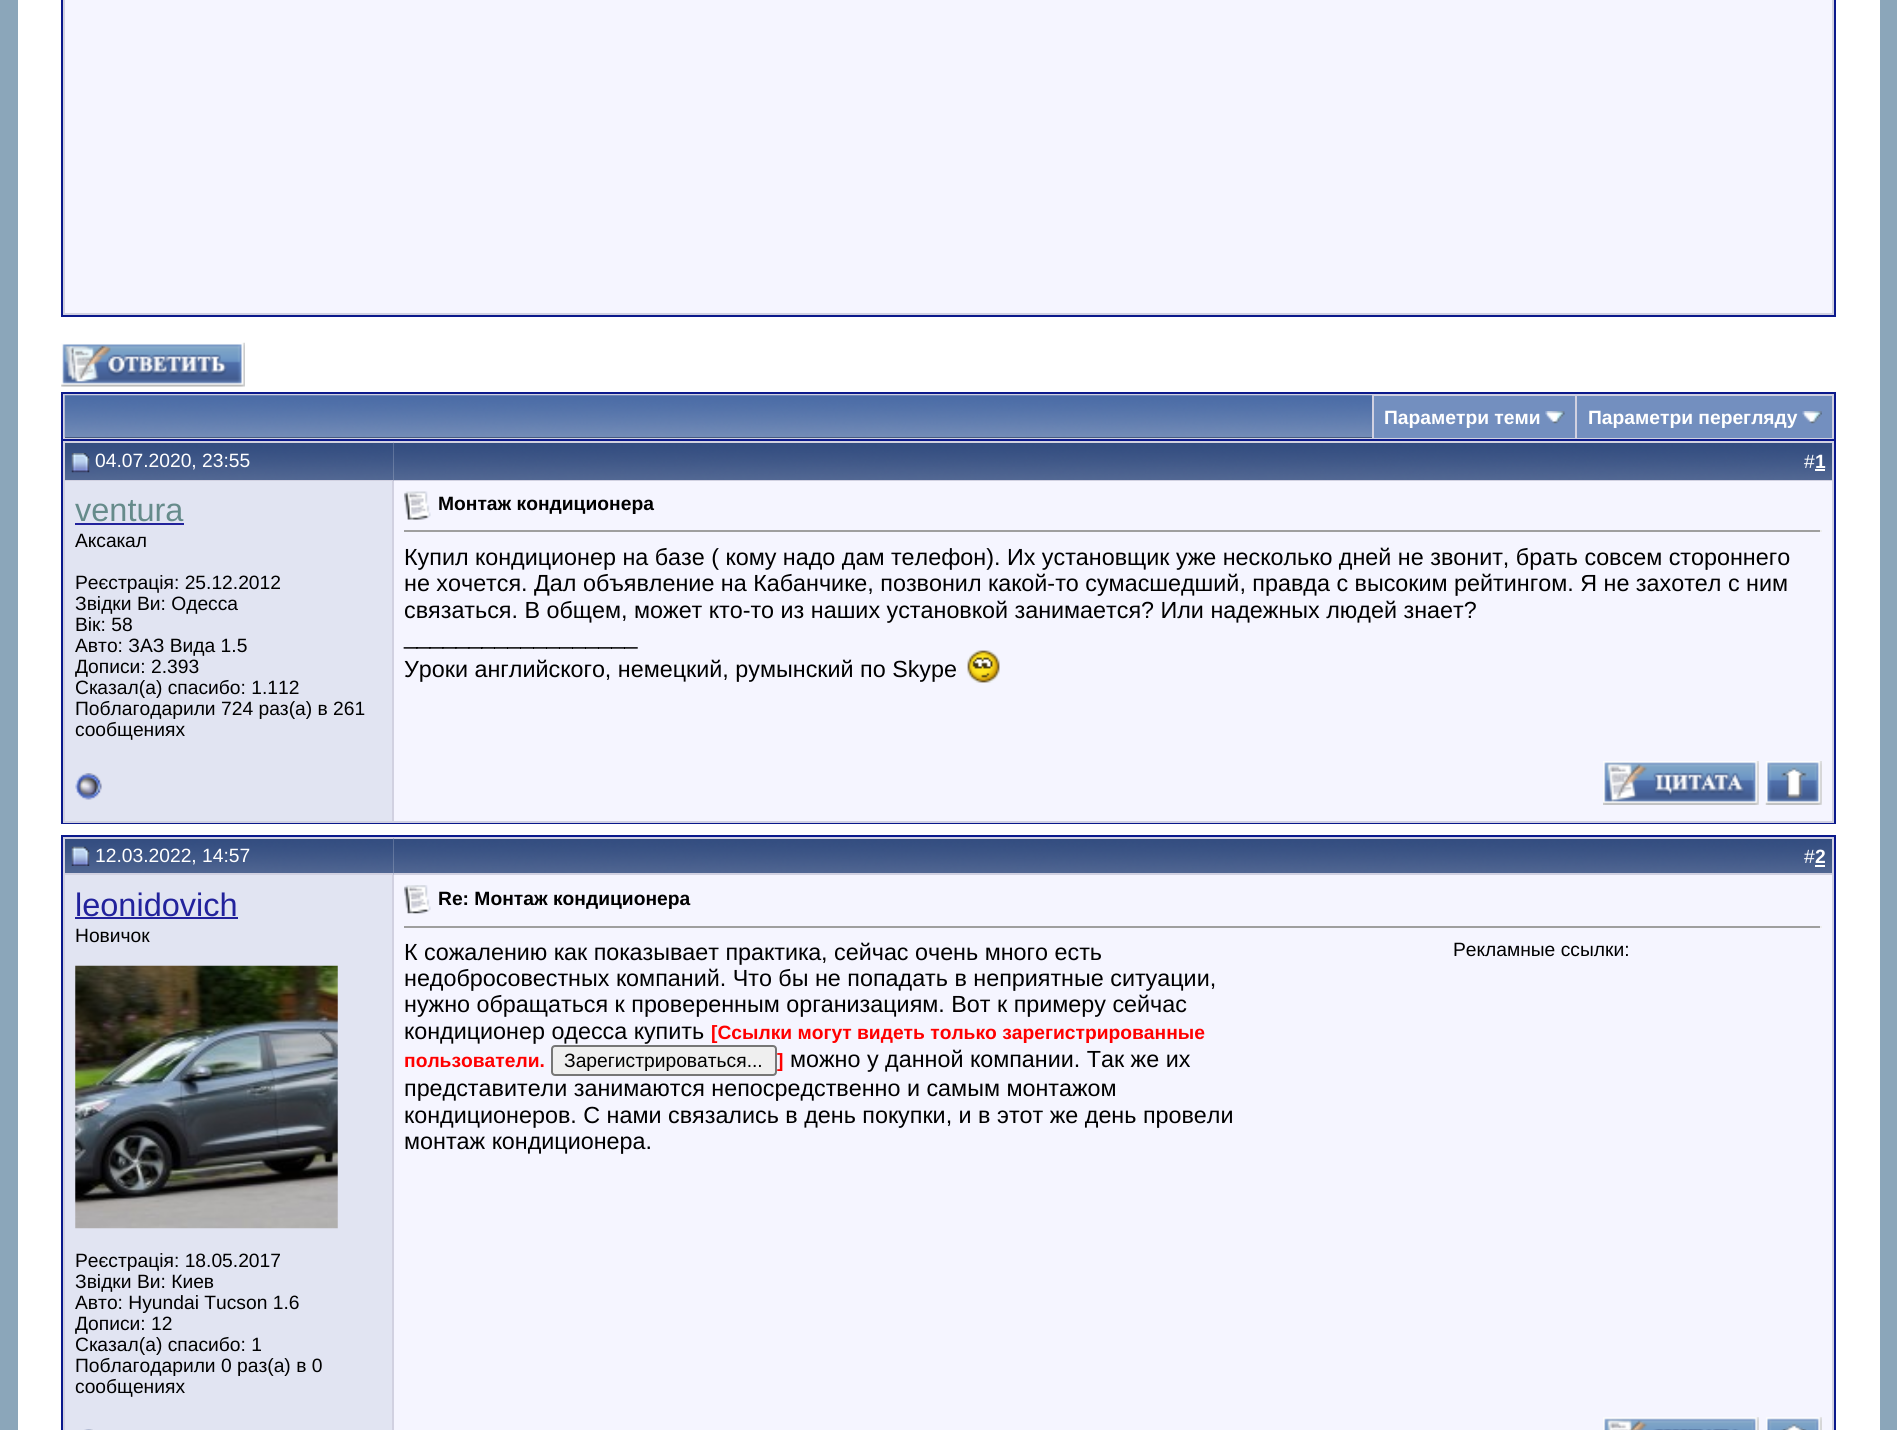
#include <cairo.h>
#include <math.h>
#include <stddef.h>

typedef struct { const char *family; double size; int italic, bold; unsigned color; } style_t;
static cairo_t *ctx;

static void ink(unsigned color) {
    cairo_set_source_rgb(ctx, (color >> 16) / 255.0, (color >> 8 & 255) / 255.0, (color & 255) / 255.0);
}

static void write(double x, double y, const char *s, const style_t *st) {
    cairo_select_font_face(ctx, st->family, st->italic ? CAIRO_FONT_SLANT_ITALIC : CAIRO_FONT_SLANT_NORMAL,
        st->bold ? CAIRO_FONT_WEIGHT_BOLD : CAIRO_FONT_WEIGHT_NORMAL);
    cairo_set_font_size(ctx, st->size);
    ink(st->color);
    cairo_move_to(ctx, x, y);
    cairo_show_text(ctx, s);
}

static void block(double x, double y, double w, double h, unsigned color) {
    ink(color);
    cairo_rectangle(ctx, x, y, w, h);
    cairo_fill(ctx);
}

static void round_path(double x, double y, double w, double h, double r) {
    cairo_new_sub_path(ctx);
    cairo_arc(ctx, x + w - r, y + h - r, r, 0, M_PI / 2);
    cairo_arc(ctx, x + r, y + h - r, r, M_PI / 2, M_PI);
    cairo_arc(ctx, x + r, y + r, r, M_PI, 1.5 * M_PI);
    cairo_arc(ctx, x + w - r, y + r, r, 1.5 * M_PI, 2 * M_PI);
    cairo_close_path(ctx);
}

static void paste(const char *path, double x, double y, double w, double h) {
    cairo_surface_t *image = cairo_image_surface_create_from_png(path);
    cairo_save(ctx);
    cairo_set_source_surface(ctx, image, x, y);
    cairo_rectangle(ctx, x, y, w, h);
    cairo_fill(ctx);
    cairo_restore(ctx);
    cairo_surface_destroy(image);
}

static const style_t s1 = {"Liberation Sans", 19.25, 0, 1, 0xffffff};
static const style_t s2 = {"Liberation Sans", 19.25, 0, 0, 0xffffff};
static const style_t s3 = {"Liberation Sans", 32.5, 0, 0, 0x668b8b};
static const style_t s4 = {"Liberation Sans", 19.25, 0, 0, 0x000000};
static const style_t s5 = {"Liberation Sans", 19.25, 0, 1, 0x000000};
static const style_t s6 = {"Liberation Sans", 23.33, 0, 0, 0x000000};
static const style_t s7 = {"Liberation Sans", 32.5, 0, 0, 0x22229c};
static const style_t s8 = {"Liberation Sans", 19.25, 0, 1, 0xff0000};

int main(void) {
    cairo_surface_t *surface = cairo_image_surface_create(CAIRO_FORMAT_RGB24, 1897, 1430);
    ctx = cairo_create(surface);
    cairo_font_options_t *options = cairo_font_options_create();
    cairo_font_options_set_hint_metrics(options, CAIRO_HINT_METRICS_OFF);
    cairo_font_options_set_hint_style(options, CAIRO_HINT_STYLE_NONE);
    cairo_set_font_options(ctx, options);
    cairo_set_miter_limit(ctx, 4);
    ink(0x8ba6ba);
    cairo_paint(ctx);
    block(18, 0, 1862, 1430, 0xffffff);
    ink(0xd1d1e1);
    cairo_rectangle(ctx, 62, -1, 1773, 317);
    cairo_fill_preserve(ctx);
    ink(0x0b198c);
    cairo_stroke(ctx);
    block(65, 0, 1767, 313, 0xf5f5ff);
    paste("pic1.png", 61, 342, 184, 45);
    block(63, 394, 1771, 45, 0xd1d1e1);
    block(61, 392, 1775, 2, 0x0b198c);
    block(1834, 392, 2, 47, 0x0b198c);
    block(61, 392, 2, 47, 0x0b198c);
    block(65, 437, 1307, 1, 0x374a6a);
    paste("pic2.png", 64, 395, 1308, 43);
    block(1374, 396, 201, 42, 0x738fbf);
    write(1384, 424, "Параметри теми", &s1);
    paste("pic3.png", 1545, 411, 20, 13);
    block(1577, 396, 255, 42, 0x738fbf);
    write(1588, 424, "Параметри перегляду", &s1);
    paste("pic4.png", 1802, 411, 20, 13);
    cairo_rectangle(ctx, 62, 440, 1773, 383);
    ink(0x0b198c);
    cairo_stroke(ctx);
    paste("pic5.png", 65, 443, 329, 37);
    block(63, 441, 331, 2, 0xd1d1e1);
    block(63, 480, 331, 1, 0xd1d1e1);
    block(63, 441, 2, 310, 0xd1d1e1);
    paste("pic6.png", 71, 453, 19, 20);
    write(95, 467, "04.07.2020, 23:55", &s2);
    paste("pic7.png", 393, 442, 1439, 39);
    block(394, 441, 1440, 2, 0xd1d1e1);
    block(1832, 441, 2, 382, 0xd1d1e1);
    block(394, 480, 1440, 1, 0xd1d1e1);
    write(1804, 468, "#", &s2);
    write(1815, 468, "1", &s1);
    block(1815, 469, 10, 2, 0xffffff);
    block(65, 481, 327, 340, 0xe1e4f2);
    block(392, 481, 2, 342, 0xd1d1e1);
    write(75, 521, "ventura", &s3);
    block(75, 523, 109, 2, 0x22229c);
    write(75, 547, "Аксакал", &s4);
    write(75, 589, "Реєстрація: 25.12.2012", &s4);
    write(75, 610, "Звідки Ви: Одесса", &s4);
    write(75, 631, "Вік: 58", &s4);
    write(75, 652, "Авто: ЗАЗ Вида 1.5", &s4);
    write(75, 673, "Дописи: 2.393", &s4);
    write(75, 694, "Сказал(а) спасибо: 1.112", &s4);
    write(75, 715, "Поблагодарили 724 раз(а) в 261", &s4);
    write(75, 736, "сообщениях", &s4);
    block(394, 481, 1438, 340, 0xf5f5ff);
    paste("pic8.png", 404, 491, 27, 29);
    write(438, 510, "Монтаж кондиционера", &s5);
    block(404, 530, 1418, 2, 0x9f9f9f);
    block(1820, 530, 2, 2, 0xeeeeee);
    write(404, 565, "Купил кондиционер на базе ( кому надо дам телефон). Их установщик уже несколько дней не звонит, брать совсем стороннего", &s6);
    write(404, 591, "не хочется. Дал объявление на Кабанчике, позвонил какой-то сумасшедший, правда с высоким рейтингом. Я не захотел с ним", &s6);
    write(404, 618, "связаться. В общем, может кто-то из наших установкой занимается? Или надежных людей знает?", &s6);
    write(404, 644, "__________________", &s6);
    write(404, 677, "Уроки английского, немецкий, румынский по Skype", &s6);
    paste("pic9.png", 967, 650, 33, 33);
    block(63, 821, 1771, 2, 0xd1d1e1);
    block(63, 751, 2, 72, 0xd1d1e1);
    paste("pic10.png", 75, 773, 27, 27);
    paste("pic11.png", 1603, 761, 156, 44);
    paste("pic12.png", 1765, 761, 57, 44);
    cairo_rectangle(ctx, 62, 836, 1773, 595);
    ink(0x0b198c);
    cairo_stroke(ctx);
    paste("pic13.png", 65, 839, 329, 34);
    block(63, 837, 331, 2, 0xd1d1e1);
    block(63, 873, 331, 2, 0xd1d1e1);
    block(63, 837, 2, 593, 0xd1d1e1);
    paste("pic14.png", 71, 846, 19, 20);
    write(95, 862, "12.03.2022, 14:57", &s2);
    paste("pic15.png", 393, 838, 1439, 37);
    block(394, 837, 1440, 2, 0xd1d1e1);
    block(1832, 837, 2, 593, 0xd1d1e1);
    block(394, 873, 1440, 2, 0xd1d1e1);
    write(1804, 863, "#", &s2);
    write(1815, 863, "2", &s1);
    block(1815, 865, 10, 2, 0xffffff);
    block(65, 875, 327, 555, 0xe1e4f2);
    block(392, 875, 2, 555, 0xd1d1e1);
    write(75, 916, "leonidovich", &s7);
    block(75, 917, 163, 2, 0x22229c);
    write(75, 942, "Новичок", &s4);
    paste("pic16.png", 75, 965, 263, 264);
    write(75, 1267, "Реєстрація: 18.05.2017", &s4);
    write(75, 1288, "Звідки Ви: Киев", &s4);
    write(75, 1309, "Авто: Hyundai Tucson 1.6", &s4);
    write(75, 1330, "Дописи: 12", &s4);
    write(75, 1351, "Сказал(а) спасибо: 1", &s4);
    write(75, 1372, "Поблагодарили 0 раз(а) в 0", &s4);
    write(75, 1393, "сообщениях", &s4);
    block(394, 875, 1438, 555, 0xf5f5ff);
    paste("pic17.png", 404, 885, 27, 29);
    write(438, 905, "Re: Монтаж кондиционера", &s5);
    block(404, 926, 1418, 2, 0x9f9f9f);
    block(1820, 926, 2, 2, 0xeeeeee);
    write(404, 960, "К сожалению как показывает практика, сейчас очень много есть", &s6);
    write(1453, 956, "Рекламные ссылки:", &s4);
    write(404, 986, "недобросовестных компаний. Что бы не попадать в неприятные ситуации,", &s6);
    write(404, 1012, "нужно обращаться к проверенным организациям. Вот к примеру сейчас", &s6);
    write(711, 1039, "[Ссылки могут видеть только зарегистрированные", &s8);
    write(404, 1067, "пользователи.", &s8);
    ink(0xefefef);
    round_path(552, 1046, 224, 29, 3);
    cairo_fill_preserve(ctx);
    ink(0x767676);
    cairo_stroke(ctx);
    write(564, 1067, "Зарегистрироваться...", &s4);
    write(777, 1067, "]", &s8);
    write(404, 1039, "кондиционер одесса купить", &s6);
    write(790, 1067, "можно у данной компании. Так же их", &s6);
    write(404, 1096, "представители занимаются непосредственно и самым монтажом", &s6);
    write(404, 1123, "кондиционеров. С нами связались в день покупки, и в этот же день провели", &s6);
    write(404, 1149, "монтаж кондиционера.", &s6);
    paste("pic18.png", 84, 1429, 9, 1);
    paste("pic19.png", 1603, 1417, 156, 13);
    paste("pic20.png", 1766, 1417, 56, 13);
    cairo_surface_write_to_png(surface, "screenshot.png");
    cairo_font_options_destroy(options);
    cairo_destroy(ctx);
    cairo_surface_destroy(surface);
    return 0;
}
